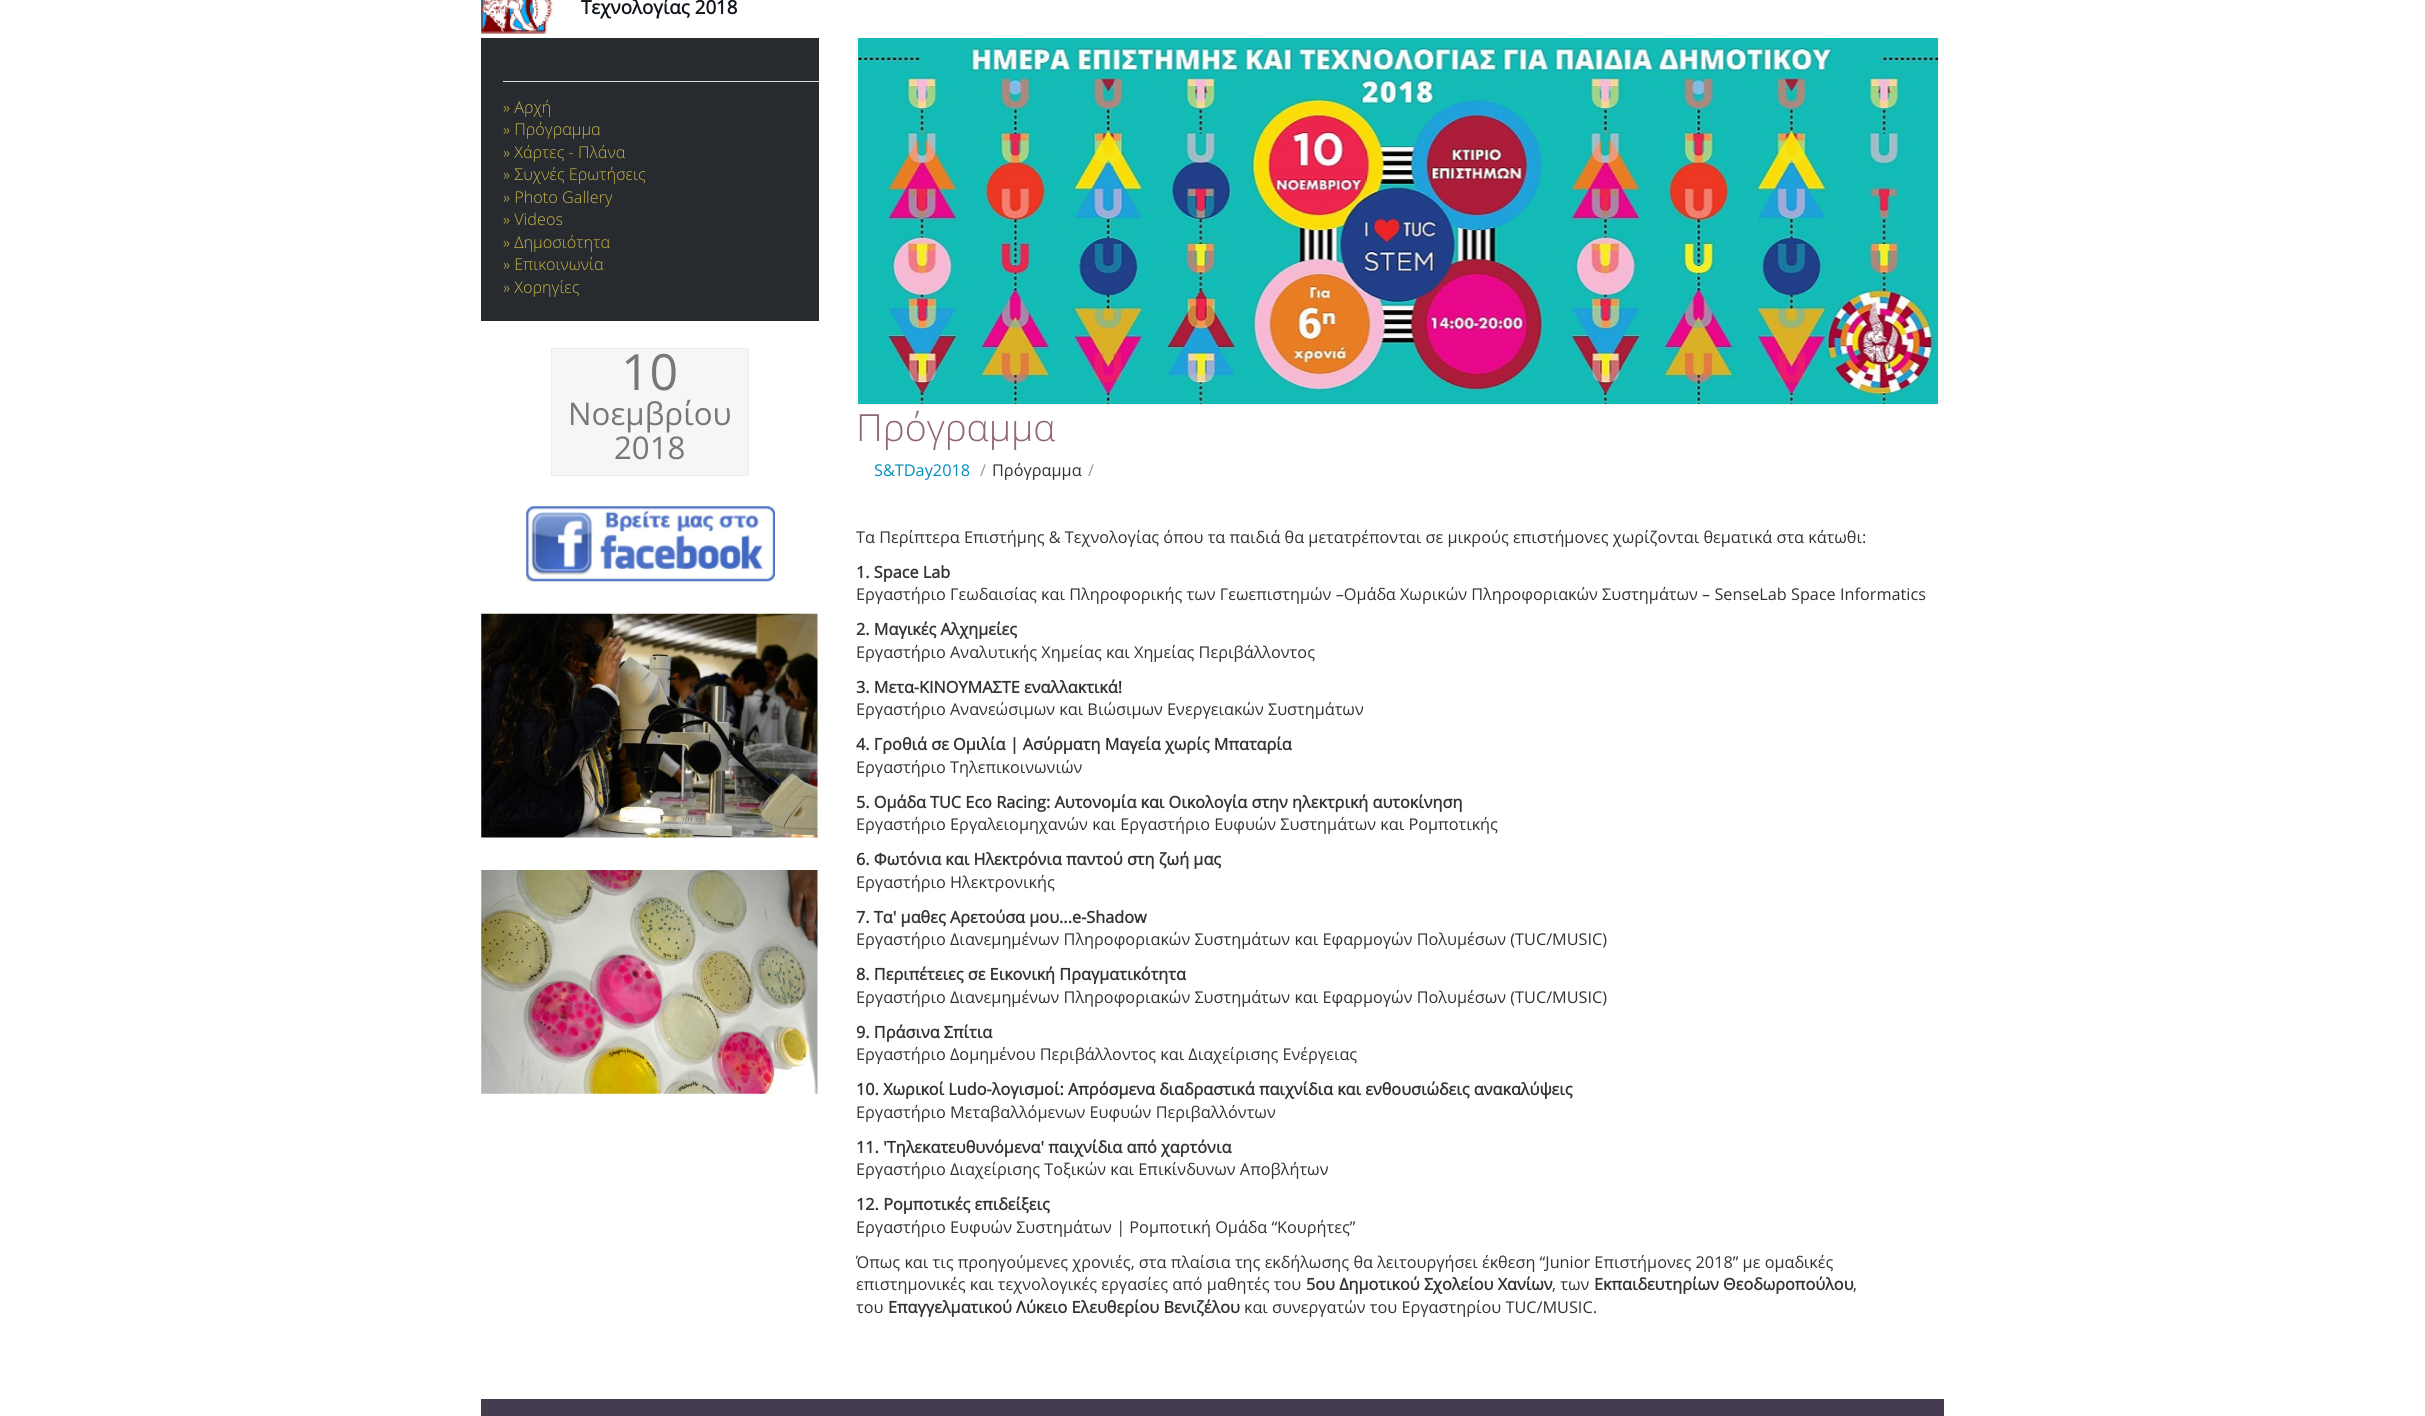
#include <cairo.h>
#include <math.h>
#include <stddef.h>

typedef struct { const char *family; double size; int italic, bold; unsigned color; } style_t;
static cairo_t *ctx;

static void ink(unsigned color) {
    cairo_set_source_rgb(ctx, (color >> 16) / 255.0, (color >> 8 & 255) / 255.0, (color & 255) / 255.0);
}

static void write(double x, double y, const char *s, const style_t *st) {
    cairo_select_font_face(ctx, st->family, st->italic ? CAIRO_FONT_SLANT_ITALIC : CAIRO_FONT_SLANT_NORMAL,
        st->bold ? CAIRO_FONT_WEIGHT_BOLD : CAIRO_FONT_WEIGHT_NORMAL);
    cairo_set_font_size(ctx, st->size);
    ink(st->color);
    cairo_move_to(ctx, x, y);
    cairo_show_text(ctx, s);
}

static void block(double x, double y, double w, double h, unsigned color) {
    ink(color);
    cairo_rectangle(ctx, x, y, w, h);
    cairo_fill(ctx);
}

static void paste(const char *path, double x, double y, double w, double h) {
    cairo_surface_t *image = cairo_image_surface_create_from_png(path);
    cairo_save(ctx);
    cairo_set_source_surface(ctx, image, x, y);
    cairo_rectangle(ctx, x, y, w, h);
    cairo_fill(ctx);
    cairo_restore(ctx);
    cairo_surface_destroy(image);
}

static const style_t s1 = {"Open Sans", 18.75, 0, 1, 0x11151c};
static const style_t s2 = {"Open Sans Light", 16.25, 0, 0, 0xc7b547};
static const style_t s3 = {"Open Sans", 50, 0, 0, 0x777777};
static const style_t s4 = {"Open Sans", 31.25, 0, 0, 0x777777};
static const style_t s5 = {"Open Sans Light", 37.5, 0, 0, 0x916576};
static const style_t s6 = {"Open Sans", 16.25, 0, 0, 0x028dc0};
static const style_t s7 = {"Open Sans", 16.25, 0, 0, 0x999999};
static const style_t s8 = {"Open Sans", 16.25, 0, 0, 0x333333};
static const style_t s9 = {"Open Sans", 16.25, 0, 1, 0x333333};

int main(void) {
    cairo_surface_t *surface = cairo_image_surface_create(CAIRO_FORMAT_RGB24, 2425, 1416);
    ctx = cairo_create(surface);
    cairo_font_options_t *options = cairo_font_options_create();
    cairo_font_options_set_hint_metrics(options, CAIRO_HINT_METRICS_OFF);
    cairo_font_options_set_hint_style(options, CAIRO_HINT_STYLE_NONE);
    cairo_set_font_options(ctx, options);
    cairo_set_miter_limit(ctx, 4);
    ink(0xffffff);
    cairo_paint(ctx);
    paste("pic1.png", 481, 0, 72, 34);
    write(581, 14, "Τεχνολογίας 2018", &s1);
    block(481, 38, 338, 283, 0x272a2f);
    block(503, 81, 316, 1, 0xdbdfe2);
    write(503, 113, "» Αρχή", &s2);
    write(503, 135, "» Πρόγραμμα", &s2);
    write(503, 158, "» Χάρτες - Πλάνα", &s2);
    write(503, 180, "» Συχνές Ερωτήσεις", &s2);
    write(503, 203, "» Photo Gallery", &s2);
    write(503, 225, "» Videos", &s2);
    write(503, 248, "» Δημοσιότητα", &s2);
    write(503, 270, "» Επικοινωνία", &s2);
    write(503, 293, "» Χορηγίες", &s2);
    ink(0xf6f6f6);
    cairo_rectangle(ctx, 551.5, 348.5, 197, 127);
    cairo_fill_preserve(ctx);
    ink(0xebebeb);
    cairo_set_line_width(ctx, 1);
    cairo_stroke(ctx);
    write(621, 390, "10", &s3);
    write(568, 425, "Νοεμβρίου", &s4);
    write(614, 459, "2018", &s4);
    paste("pic2.png", 526, 506, 249, 76);
    paste("pic3.png", 481, 613, 337, 225);
    paste("pic4.png", 481, 870, 337, 224);
    cairo_rectangle(ctx, 856.5, 38.5, 1082, 366);
    ink(0xf4f4f4);
    cairo_stroke(ctx);
    paste("pic5.png", 858, 38, 1080, 366);
    write(856, 441, "Πρόγραμμα", &s5);
    write(874, 476, "S&TDay2018", &s6);
    write(980, 476, "/", &s7);
    write(992, 476, "Πρόγραμμα", &s8);
    write(1088, 476, "/", &s7);
    write(856, 543, "Τα Περίπτερα Επιστήμης & Τεχνολογίας όπου τα παιδιά θα μετατρέπονται σε μικρούς επιστήμονες χωρίζονται θεματικά στα κάτωθι:", &s8);
    write(856, 578, "1. Space Lab", &s9);
    write(856, 600, "Εργαστήριο Γεωδαισίας και Πληροφορικής των Γεωεπιστημών –Ομάδα Χωρικών Πληροφοριακών Συστημάτων – SenseLab Space Informatics", &s8);
    write(856, 635, "2. Μαγικές Αλχημείες", &s9);
    write(856, 658, "Εργαστήριο Αναλυτικής Χημείας και Χημείας Περιβάλλοντος", &s8);
    write(856, 693, "3. Μετα-ΚΙΝΟYΜΑΣΤΕ εναλλακτικά!", &s9);
    write(856, 715, "Εργαστήριο Ανανεώσιμων και Βιώσιμων Ενεργειακών Συστημάτων", &s8);
    write(856, 750, "4. Γροθιά σε Ομιλία | Ασύρματη Μαγεία χωρίς Μπαταρία", &s9);
    write(856, 773, "Eργαστήριο Τηλεπικοινωνιών", &s8);
    write(856, 808, "5. Oμάδα TUC Eco Racing: Aυτονομία και Οικολογία στην ηλεκτρική αυτοκίνηση", &s9);
    write(856, 830, "Εργαστήριο Εργαλειομηχανών και Εργαστήριο Ευφυών Συστημάτων και Ρομποτικής", &s8);
    write(856, 865, "6. Φωτόνια και Ηλεκτρόνια παντού στη ζωή μας", &s9);
    write(856, 888, "Εργαστήριο Ηλεκτρονικής", &s8);
    write(856, 923, "7. Τα' μαθες Αρετούσα μου...e-Shadow", &s9);
    write(856, 945, "Εργαστήριο Διανεμημένων Πληροφοριακών Συστημάτων και Εφαρμογών Πολυμέσων (TUC/MUSIC)", &s8);
    write(856, 980, "8. Περιπέτειες σε Εικονική Πραγματικότητα", &s9);
    write(856, 1003, "Εργαστήριο Διανεμημένων Πληροφοριακών Συστημάτων και Εφαρμογών Πολυμέσων (TUC/MUSIC)", &s8);
    write(856, 1038, "9. Πράσινα Σπίτια", &s9);
    write(856, 1060, "Eργαστήριο Δομημένου Περιβάλλοντος και Διαχείρισης Ενέργειας", &s8);
    write(856, 1095, "10. Χωρικοί Ludo-λογισμοί: Απρόσμενα διαδραστικά παιχνίδια και ενθουσιώδεις ανακαλύψεις", &s9);
    write(856, 1118, "Εργαστήριο Μεταβαλλόμενων Ευφυών Περιβαλλόντων", &s8);
    write(856, 1153, "11. 'Τηλεκατευθυνόμενα' παιχνίδια από χαρτόνια", &s9);
    write(856, 1175, "Εργαστήριο Διαχείρισης Τοξικών και Επικίνδυνων Αποβλήτων", &s8);
    write(856, 1210, "12. Ρομποτικές επιδείξεις", &s9);
    write(856, 1233, "Εργαστήριο Ευφυών Συστημάτων | Ρομποτική Ομάδα “Κουρήτες”", &s8);
    write(856, 1268, "Όπως και τις προηγούμενες χρονιές, στα πλαίσια της εκδήλωσης θα λειτουργήσει έκθεση “Junior Επιστήμονες 2018” με ομαδικές", &s8);
    write(856, 1290, "επιστημονικές και τεχνολογικές εργασίες από μαθητές του", &s8);
    write(1306, 1290, "5ου Δημοτικού Σχολείου Χανίων", &s9);
    write(1552, 1290, ", των", &s8);
    write(1594, 1290, "Εκπαιδευτηρίων Θεοδωροπούλου", &s9);
    write(1853, 1290, ",", &s8);
    write(856, 1313, "του", &s8);
    write(888, 1313, "Επαγγελματικού Λύκειο Ελευθερίου Βενιζέλου", &s9);
    write(1244, 1313, "και συνεργατών του Εργαστηρίου TUC/MUSIC.", &s8);
    block(481, 1399, 1463, 17, 0x453c50);
    cairo_surface_write_to_png(surface, "screenshot.png");
    cairo_font_options_destroy(options);
    cairo_destroy(ctx);
    cairo_surface_destroy(surface);
    return 0;
}
